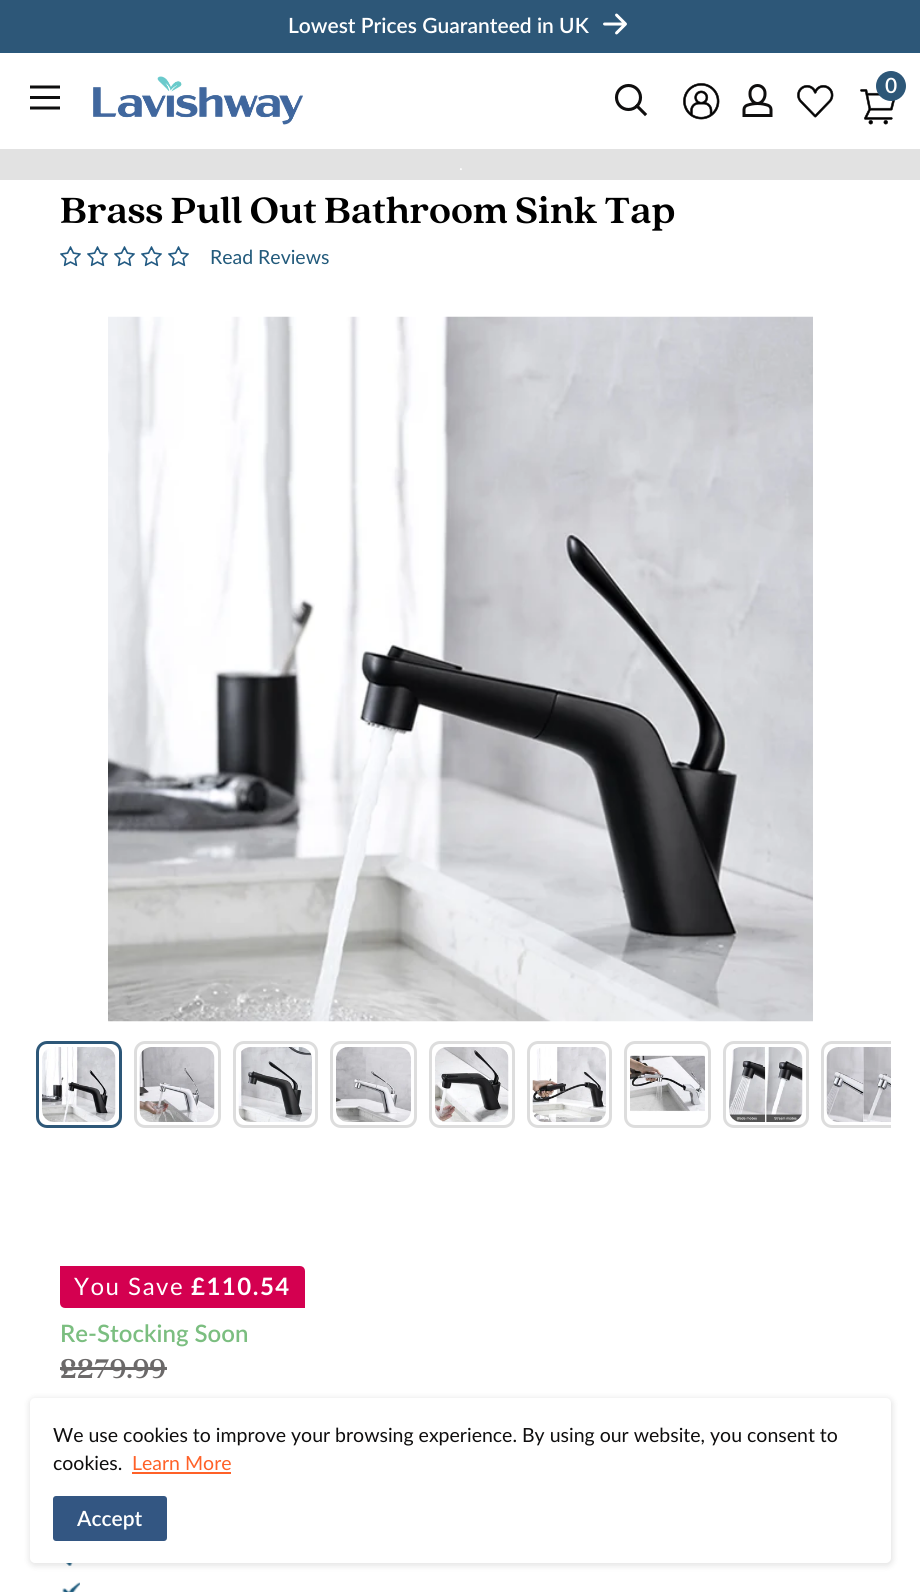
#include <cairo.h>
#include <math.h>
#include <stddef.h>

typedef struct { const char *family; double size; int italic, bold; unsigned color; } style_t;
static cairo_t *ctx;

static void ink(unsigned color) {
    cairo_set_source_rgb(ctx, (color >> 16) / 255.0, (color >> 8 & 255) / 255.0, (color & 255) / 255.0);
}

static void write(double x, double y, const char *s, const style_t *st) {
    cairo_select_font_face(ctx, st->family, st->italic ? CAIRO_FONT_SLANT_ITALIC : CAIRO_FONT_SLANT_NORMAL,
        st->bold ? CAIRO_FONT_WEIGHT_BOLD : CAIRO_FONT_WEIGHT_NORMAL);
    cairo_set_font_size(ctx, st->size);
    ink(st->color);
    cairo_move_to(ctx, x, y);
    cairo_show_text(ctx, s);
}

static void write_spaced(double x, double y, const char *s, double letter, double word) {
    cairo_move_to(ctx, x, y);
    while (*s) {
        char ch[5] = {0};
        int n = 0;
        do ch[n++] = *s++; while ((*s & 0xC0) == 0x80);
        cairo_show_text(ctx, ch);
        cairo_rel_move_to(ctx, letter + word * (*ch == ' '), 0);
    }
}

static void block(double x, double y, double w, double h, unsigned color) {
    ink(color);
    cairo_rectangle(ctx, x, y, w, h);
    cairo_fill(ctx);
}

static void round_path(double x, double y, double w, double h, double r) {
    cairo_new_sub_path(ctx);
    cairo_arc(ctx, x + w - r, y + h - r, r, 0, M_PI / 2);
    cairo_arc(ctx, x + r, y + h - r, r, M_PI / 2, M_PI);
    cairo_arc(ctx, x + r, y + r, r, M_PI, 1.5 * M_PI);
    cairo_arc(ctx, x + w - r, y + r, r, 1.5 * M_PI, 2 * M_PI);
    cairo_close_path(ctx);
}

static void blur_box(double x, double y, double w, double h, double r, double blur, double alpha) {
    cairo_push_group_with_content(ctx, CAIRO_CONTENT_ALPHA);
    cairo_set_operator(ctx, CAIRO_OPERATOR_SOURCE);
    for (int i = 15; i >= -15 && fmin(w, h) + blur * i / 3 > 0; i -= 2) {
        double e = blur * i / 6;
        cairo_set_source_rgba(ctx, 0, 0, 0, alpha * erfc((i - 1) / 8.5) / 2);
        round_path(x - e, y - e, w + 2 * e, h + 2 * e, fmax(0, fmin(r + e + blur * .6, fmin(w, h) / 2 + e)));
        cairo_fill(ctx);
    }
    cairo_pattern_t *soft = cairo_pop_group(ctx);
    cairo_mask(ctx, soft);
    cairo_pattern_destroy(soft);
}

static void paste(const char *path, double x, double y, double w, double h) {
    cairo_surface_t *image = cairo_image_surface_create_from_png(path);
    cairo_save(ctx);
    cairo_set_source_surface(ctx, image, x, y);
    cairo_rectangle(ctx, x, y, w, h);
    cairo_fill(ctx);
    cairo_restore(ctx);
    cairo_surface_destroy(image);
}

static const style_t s1 = {"Lato SemiBold", 21, 0, 0, 0xffffff};
static const style_t s2 = {"Lato", 16, 0, 0, 0xffffff};
static const style_t s3 = {"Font", 40.5, 0, 1, 0x000000};
static const style_t s4 = {"Lato", 19.5, 0, 0, 0x225a7b};
static const style_t s5 = {"Lato SemiBold", 24, 0, 0, 0x7bbe80};
static const style_t s6 = {"Font", 30, 0, 1, 0x6b6969};
static const style_t s7 = {"Lato", 19.5, 0, 0, 0x0f0e0e};
static const style_t s8 = {"Lato", 19.5, 0, 0, 0xff6128};

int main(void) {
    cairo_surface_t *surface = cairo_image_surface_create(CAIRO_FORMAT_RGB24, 920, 1592);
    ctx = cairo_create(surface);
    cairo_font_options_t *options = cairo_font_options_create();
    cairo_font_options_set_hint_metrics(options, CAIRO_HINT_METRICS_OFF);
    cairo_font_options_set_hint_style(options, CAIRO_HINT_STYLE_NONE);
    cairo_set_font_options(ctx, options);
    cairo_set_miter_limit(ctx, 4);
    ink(0xffffff);
    cairo_paint(ctx);
    block(0, 0, 920, 51, 0x2d5778);
    block(0, 51, 920, 2, 0x2a587b);
    write(288, 33, "Lowest Prices Guaranteed in UK", &s1);
    paste("pic1.png", 603, 13, 24, 22);
    paste("pic2.png", 30, 85, 30, 25);
    paste("pic3.png", 93, 76, 210, 49);
    cairo_new_path(ctx);
    cairo_move_to(ctx, 645, 114);
    cairo_line_to(ctx, 637, 106);
    ink(0x0f0e0e);
    cairo_set_line_width(ctx, 3.1);
    cairo_set_line_cap(ctx, CAIRO_LINE_CAP_SQUARE);
    cairo_stroke(ctx);
    cairo_arc(ctx, 628.5, 97.5, 12, 0, 2 * M_PI);
    cairo_set_line_cap(ctx, CAIRO_LINE_CAP_BUTT);
    cairo_stroke(ctx);
    paste("pic4.png", 683, 83, 37, 37);
    paste("pic5.png", 742, 84, 31, 33);
    paste("pic6.png", 797, 85, 37, 33);
    paste("pic7.png", 860, 89, 35, 36);
    ink(0x2d5778);
    cairo_arc(ctx, 891, 86, 15, 0, 2 * M_PI);
    cairo_fill(ctx);
    write(885, 93, "0", &s1);
    block(0, 149, 920, 31, 0xe2e2e2);
    write(459, 170, ".", &s2);
    write(60, 223, "Brass Pull Out Bathroom Sink Tap", &s3);
    paste("pic8.png", 60, 246, 21, 21);
    paste("pic8.png", 87, 246, 21, 21);
    paste("pic8.png", 114, 246, 21, 21);
    paste("pic8.png", 141, 246, 21, 21);
    paste("pic8.png", 168, 246, 21, 21);
    write(210, 264, "Read Reviews", &s4);
    paste("pic9.png", 108, 316, 705, 706);
    round_path(37.5, 1042.5, 83, 84, 9.5);
    ink(0x2d5778);
    cairo_set_line_width(ctx, 3);
    cairo_stroke(ctx);
    paste("pic10.png", 42, 1047, 74, 75);
    round_path(135.5, 1042.5, 84, 84, 9.5);
    ink(0xdddddd);
    cairo_stroke(ctx);
    paste("pic11.png", 139, 1047, 76, 75);
    round_path(234.5, 1042.5, 82, 84, 9.5);
    cairo_stroke(ctx);
    paste("pic12.png", 238, 1047, 74, 75);
    round_path(331.5, 1042.5, 84, 84, 9.5);
    cairo_stroke(ctx);
    paste("pic13.png", 336, 1047, 75, 75);
    round_path(430.5, 1042.5, 83, 84, 9.5);
    cairo_stroke(ctx);
    paste("pic14.png", 435, 1047, 74, 75);
    round_path(528.5, 1042.5, 82, 84, 9.5);
    cairo_stroke(ctx);
    paste("pic15.png", 532, 1047, 74, 75);
    round_path(625.5, 1042.5, 84, 84, 9.5);
    cairo_stroke(ctx);
    paste("pic16.png", 630, 1055, 75, 57);
    round_path(724.5, 1042.5, 83, 84, 9.5);
    cairo_stroke(ctx);
    paste("pic17.png", 729, 1047, 74, 75);
    cairo_save(ctx);
    cairo_rectangle(ctx, 30, 1041, 861, 87);
    cairo_clip(ctx);
    round_path(822.5, 1042.5, 84, 84, 9.5);
    cairo_stroke(ctx);
    cairo_restore(ctx);
    paste("pic18.png", 826, 1047, 65, 75);
    ink(0xd40050);
    cairo_new_path(ctx);
    cairo_move_to(ctx, 62.5, 1268.5);
    cairo_line_to(ctx, 300, 1268.5);
    cairo_curve_to(ctx, 301.5, 1268.5, 302.5, 1269.5, 302.5, 1271);
    cairo_line_to(ctx, 302.5, 1305.5);
    cairo_line_to(ctx, 65, 1305.5);
    cairo_curve_to(ctx, 63.5, 1305.5, 62.5, 1304.5, 62.5, 1303);
    cairo_close_path(ctx);
    cairo_fill_preserve(ctx);
    cairo_set_line_width(ctx, 5);
    cairo_stroke(ctx);
    cairo_set_font_size(ctx, 24);
    ink(0xffffff);
    write_spaced(74, 1295, "You Save", 1.5, 0);
    cairo_select_font_face(ctx, "Lato", CAIRO_FONT_SLANT_NORMAL, CAIRO_FONT_WEIGHT_BOLD);
    write_spaced(191, 1295, "£110.54", 1.5, 0);
    write(60, 1342, "Re-Stocking Soon", &s5);
    write(60, 1378, "£279.99", &s6);
    block(60, 1367, 107, 3, 0x6b6969);
    paste("pic19.png", 66, 1563, 7, 3);
    paste("pic20.png", 62, 1582, 18, 10);
    ink(0x000000);
    blur_box(29, 1398, 864, 168, 6, 3, 0.1);
    ink(0xffffff);
    round_path(30, 1398, 861, 165, 5);
    cairo_fill(ctx);
    write(53, 1442, "We use cookies to improve your browsing experience. By using our website, you consent to", &s7);
    write(53, 1470, "cookies.", &s7);
    write(132, 1470, "Learn More", &s8);
    block(132, 1472, 99, 2, 0xff6128);
    ink(0x335682);
    round_path(53, 1496, 114, 45, 3);
    cairo_fill(ctx);
    write(77, 1526, "Accept", &s1);
    cairo_surface_write_to_png(surface, "screenshot.png");
    cairo_font_options_destroy(options);
    cairo_destroy(ctx);
    cairo_surface_destroy(surface);
    return 0;
}
